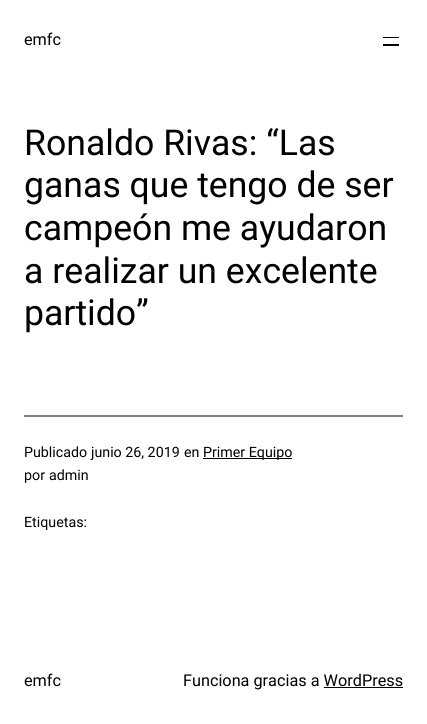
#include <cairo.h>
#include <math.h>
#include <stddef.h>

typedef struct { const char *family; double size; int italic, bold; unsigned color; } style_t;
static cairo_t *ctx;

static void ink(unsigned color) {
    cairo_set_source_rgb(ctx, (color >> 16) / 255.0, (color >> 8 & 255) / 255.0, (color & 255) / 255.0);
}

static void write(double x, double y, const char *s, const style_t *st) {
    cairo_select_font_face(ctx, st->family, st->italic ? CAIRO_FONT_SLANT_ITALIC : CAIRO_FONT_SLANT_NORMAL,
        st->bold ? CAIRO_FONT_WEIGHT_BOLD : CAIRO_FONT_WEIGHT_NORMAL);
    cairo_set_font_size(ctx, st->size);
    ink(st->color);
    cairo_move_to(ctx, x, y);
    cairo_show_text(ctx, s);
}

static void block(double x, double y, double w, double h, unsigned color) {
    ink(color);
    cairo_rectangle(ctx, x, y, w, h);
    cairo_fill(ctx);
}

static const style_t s1 = {"Roboto", 16.25, 0, 0, 0x000000};
static const style_t s2 = {"Roboto", 35.6, 0, 0, 0x000000};
static const style_t s3 = {"Roboto", 14.25, 0, 0, 0x000000};

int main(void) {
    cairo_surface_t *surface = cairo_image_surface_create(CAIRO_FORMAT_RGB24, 427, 724);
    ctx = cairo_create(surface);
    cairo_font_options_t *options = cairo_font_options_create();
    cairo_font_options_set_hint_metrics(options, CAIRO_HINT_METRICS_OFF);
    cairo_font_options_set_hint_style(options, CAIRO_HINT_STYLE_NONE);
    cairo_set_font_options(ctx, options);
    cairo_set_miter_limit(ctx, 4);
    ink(0xffffff);
    cairo_paint(ctx);
    write(24, 45, "emfc", &s1);
    block(383, 37, 16, 1, 0x000000);
    block(383, 44, 16, 2, 0x000000);
    write(24, 155, "Ronaldo Rivas: “Las", &s2);
    write(24, 197, "ganas que tengo de ser", &s2);
    write(24, 240, "campeón me ayudaron", &s2);
    write(24, 283, "a realizar un excelente", &s2);
    write(24, 325, "partido”", &s2);
    block(24, 415, 379, 2, 0x808080);
    write(24, 457, "Publicado", &s3);
    write(91, 457, "junio 26, 2019", &s3);
    write(184, 457, "en", &s3);
    block(203, 458, 89, 1, 0x000000);
    write(203, 457, "Primer Equipo", &s3);
    write(24, 480, "por", &s3);
    write(49, 480, "admin", &s3);
    write(24, 527, "Etiquetas:", &s3);
    write(24, 686, "emfc", &s1);
    write(183, 686, "Funciona gracias a WordPress", &s1);
    block(324, 687, 79, 1, 0x000000);
    cairo_surface_write_to_png(surface, "screenshot.png");
    cairo_font_options_destroy(options);
    cairo_destroy(ctx);
    cairo_surface_destroy(surface);
    return 0;
}
